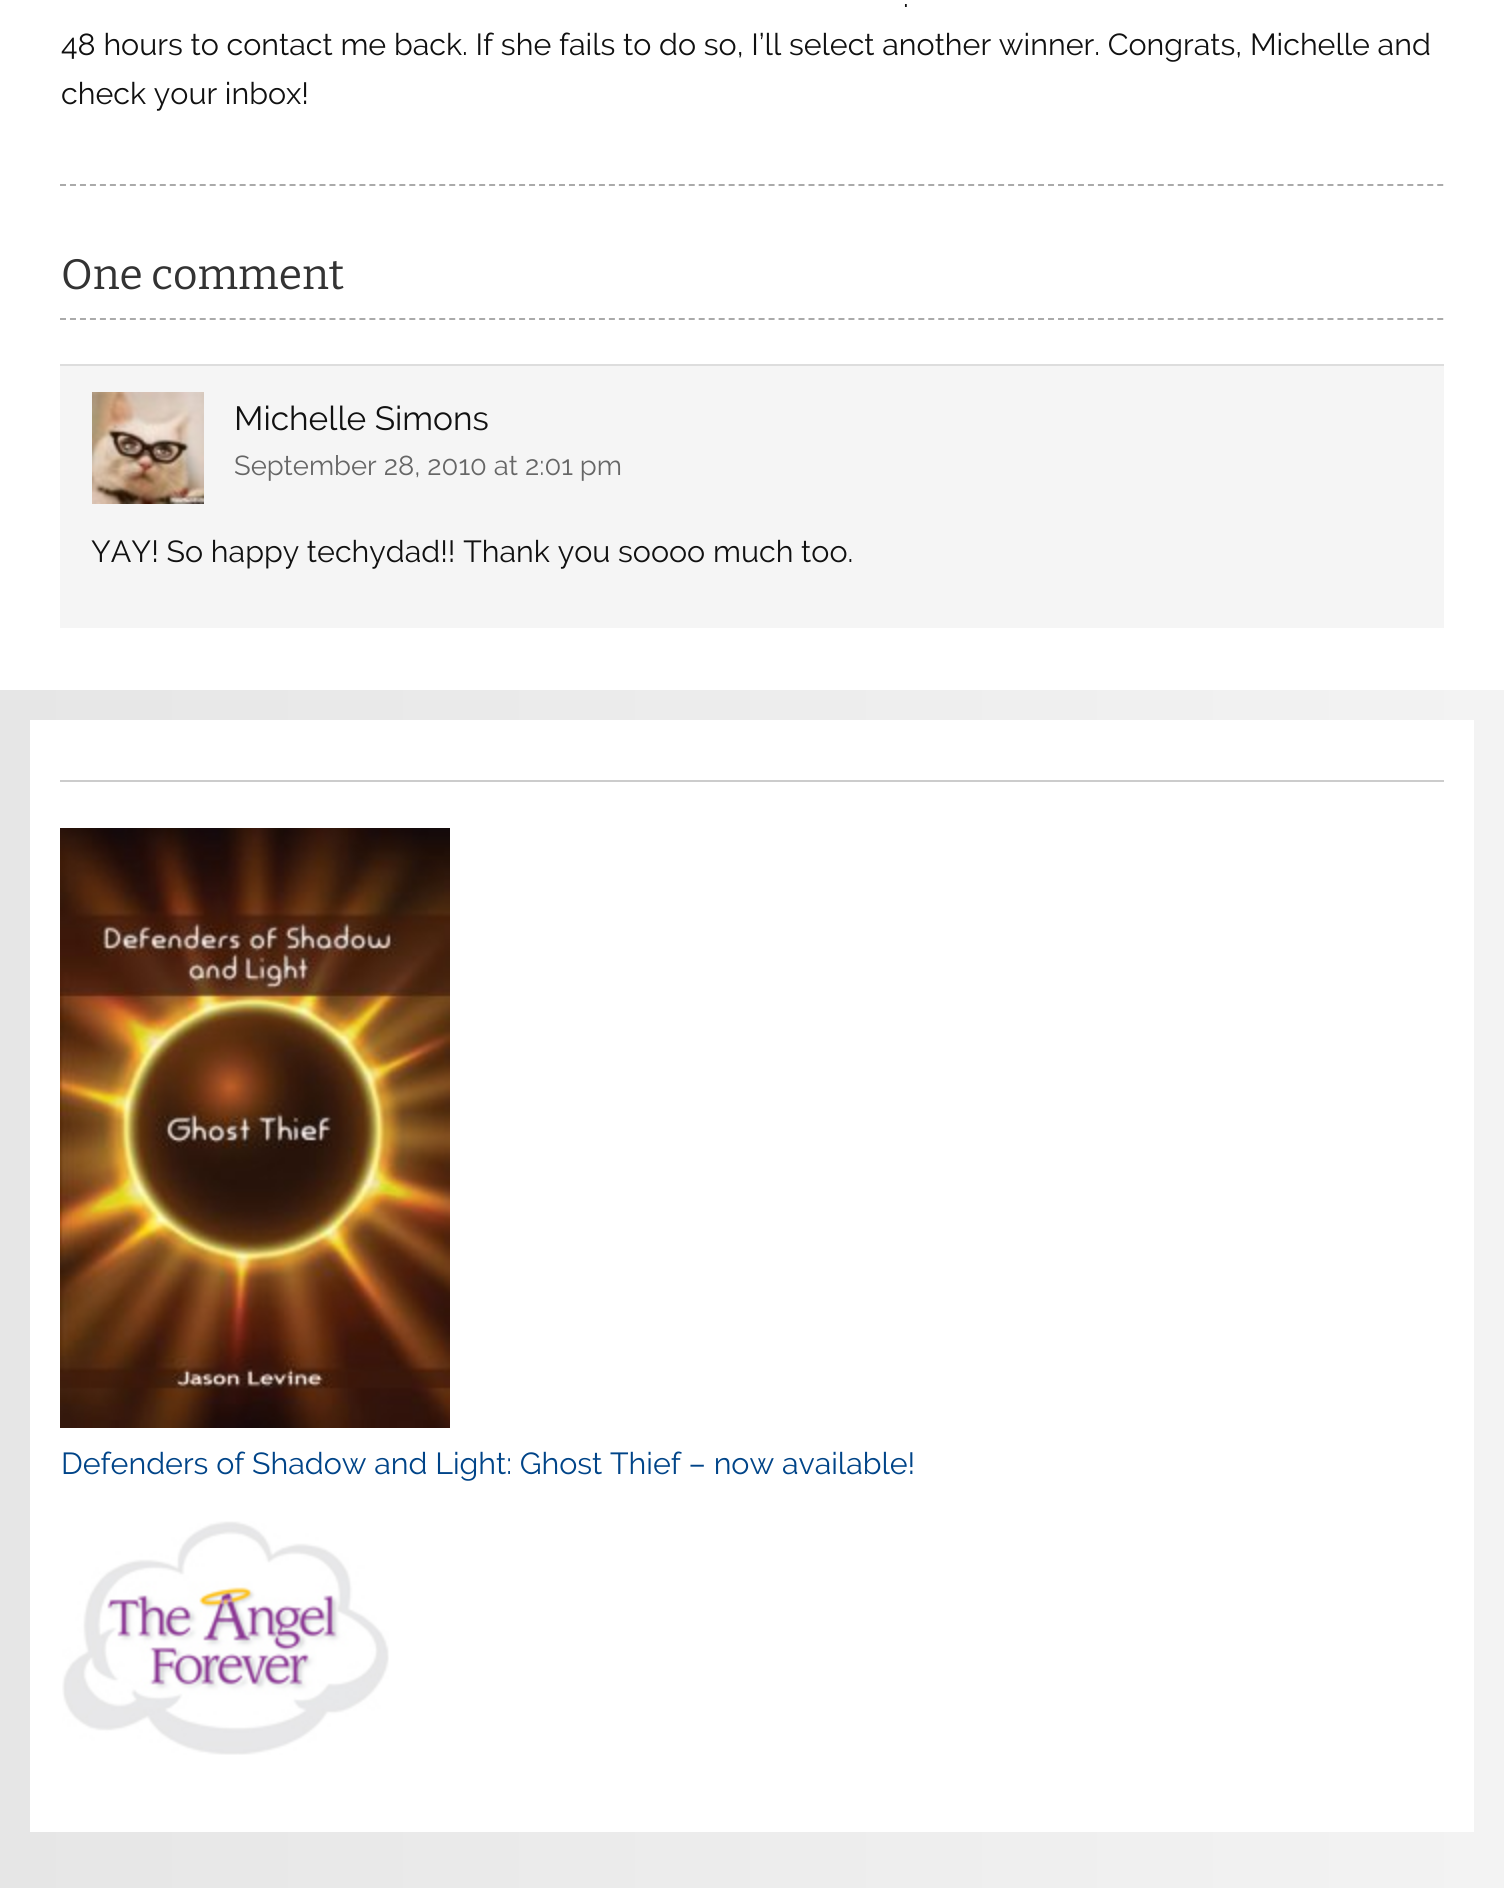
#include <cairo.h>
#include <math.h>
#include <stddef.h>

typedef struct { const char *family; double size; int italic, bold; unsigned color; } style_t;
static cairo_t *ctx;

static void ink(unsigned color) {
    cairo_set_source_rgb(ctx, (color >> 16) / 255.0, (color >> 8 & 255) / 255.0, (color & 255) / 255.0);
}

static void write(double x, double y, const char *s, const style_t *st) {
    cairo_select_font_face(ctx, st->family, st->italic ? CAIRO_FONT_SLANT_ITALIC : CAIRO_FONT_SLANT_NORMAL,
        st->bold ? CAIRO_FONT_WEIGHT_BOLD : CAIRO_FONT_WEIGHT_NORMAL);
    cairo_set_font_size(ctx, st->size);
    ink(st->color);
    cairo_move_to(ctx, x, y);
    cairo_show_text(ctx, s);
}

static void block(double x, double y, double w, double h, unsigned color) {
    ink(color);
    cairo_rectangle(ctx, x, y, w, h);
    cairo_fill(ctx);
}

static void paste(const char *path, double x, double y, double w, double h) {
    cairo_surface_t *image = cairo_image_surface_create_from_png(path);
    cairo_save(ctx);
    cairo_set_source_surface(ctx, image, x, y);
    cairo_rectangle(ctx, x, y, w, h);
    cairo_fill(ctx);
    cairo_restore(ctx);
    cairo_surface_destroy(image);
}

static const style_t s1 = {"Raleway", 30.4, 0, 0, 0x111111};
static const style_t s2 = {"Bitter", 42.5, 0, 0, 0x333333};
static const style_t s3 = {"Raleway", 33.5, 0, 0, 0x111111};
static const style_t s4 = {"Raleway", 27.4, 0, 0, 0x666666};
static const style_t s5 = {"Raleway", 30.4, 0, 0, 0x004488};

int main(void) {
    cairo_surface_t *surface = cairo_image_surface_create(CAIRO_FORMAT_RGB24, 1504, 1888);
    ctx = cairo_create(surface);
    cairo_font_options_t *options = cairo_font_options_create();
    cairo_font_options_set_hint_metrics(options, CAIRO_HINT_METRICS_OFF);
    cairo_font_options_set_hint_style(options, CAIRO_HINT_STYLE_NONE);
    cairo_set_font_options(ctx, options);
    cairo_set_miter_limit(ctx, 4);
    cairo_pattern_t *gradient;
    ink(0xffffff);
    cairo_paint(ctx);
    cairo_new_path(ctx);
    cairo_move_to(ctx, 60, 185);
    cairo_line_to(ctx, 1444, 185);
    ink(0xaaaaaa);
    cairo_set_dash(ctx, (double[]){6, 3.98}, 2, 0);
    cairo_stroke(ctx);
    write(903, 7, ".", &s1);
    write(61, 55, "48 hours to contact me back. If she fails to do so, I’ll select another winner. Congrats, Michelle and", &s1);
    write(61, 104, "check your inbox!", &s1);
    cairo_new_path(ctx);
    cairo_move_to(ctx, 60, 319);
    cairo_line_to(ctx, 1444, 319);
    ink(0xaaaaaa);
    cairo_stroke(ctx);
    write(61, 289, "One comment", &s2);
    block(60, 366, 1384, 262, 0xf5f5f5);
    block(60, 364, 1384, 2, 0xdddddd);
    paste("pic1.png", 92, 392, 112, 112);
    write(234, 430, "Michelle Simons", &s3);
    write(234, 475, "September 28, 2010 at 2:01 pm", &s4);
    write(91, 562, "YAY! So happy techydad!! Thank you soooo much too.", &s1);
    gradient = cairo_pattern_create_linear(0, 1292, 1504, 1292);
    cairo_pattern_add_color_stop_rgba(gradient, 0, 0.902, 0.902, 0.902, 1);
    cairo_pattern_add_color_stop_rgba(gradient, 1, 0.953, 0.953, 0.953, 1);
    cairo_set_source(ctx, gradient);
    cairo_pattern_destroy(gradient);
    cairo_rectangle(ctx, 0, 690, 1504, 1198);
    cairo_fill(ctx);
    block(30, 720, 1444, 1112, 0xffffff);
    block(60, 780, 1384, 2, 0xcccccc);
    paste("pic2.png", 60, 828, 390, 600);
    write(61, 1474, "Defenders of Shadow and Light: Ghost Thief – now available!", &s5);
    paste("pic3.png", 62, 1521, 327, 234);
    cairo_surface_write_to_png(surface, "screenshot.png");
    cairo_font_options_destroy(options);
    cairo_destroy(ctx);
    cairo_surface_destroy(surface);
    return 0;
}
